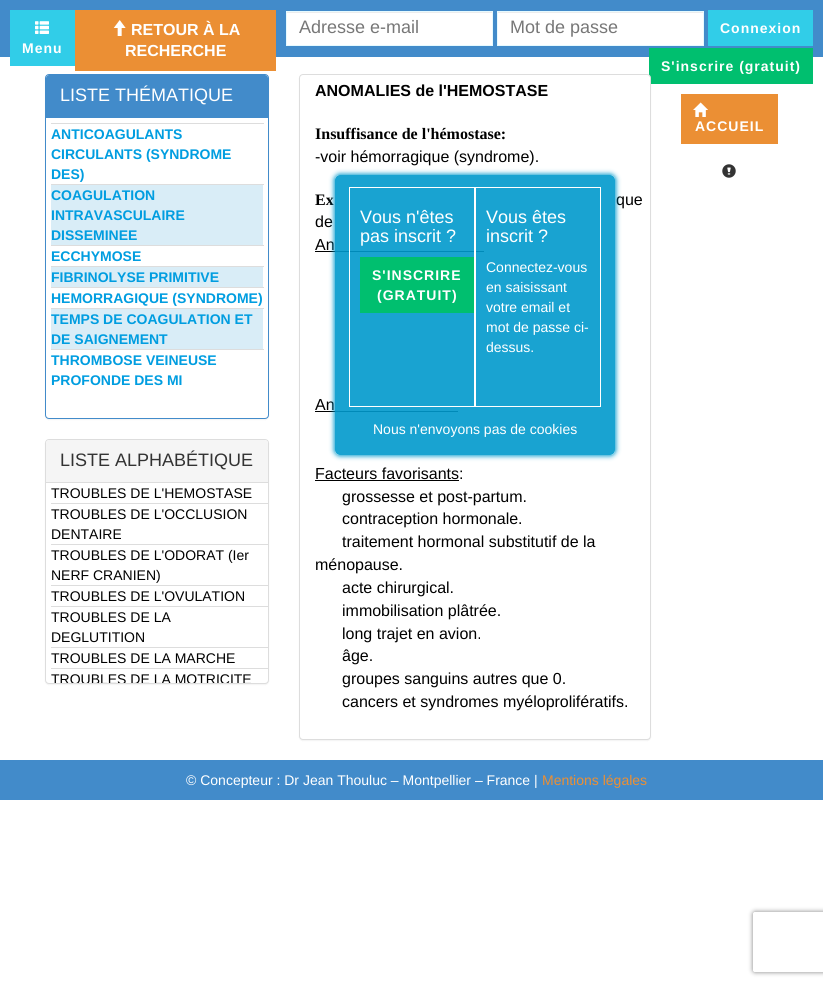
#include <cairo.h>
#include <math.h>
#include <stddef.h>

typedef struct { const char *family; double size; int italic, bold; unsigned color; } style_t;
static cairo_t *ctx;

static void ink(unsigned color) {
    cairo_set_source_rgb(ctx, (color >> 16) / 255.0, (color >> 8 & 255) / 255.0, (color & 255) / 255.0);
}

static void write(double x, double y, const char *s, const style_t *st) {
    cairo_select_font_face(ctx, st->family, st->italic ? CAIRO_FONT_SLANT_ITALIC : CAIRO_FONT_SLANT_NORMAL,
        st->bold ? CAIRO_FONT_WEIGHT_BOLD : CAIRO_FONT_WEIGHT_NORMAL);
    cairo_set_font_size(ctx, st->size);
    ink(st->color);
    cairo_move_to(ctx, x, y);
    cairo_show_text(ctx, s);
}

static void write_spaced(double x, double y, const char *s, double letter, double word) {
    cairo_move_to(ctx, x, y);
    while (*s) {
        char ch[5] = {0};
        int n = 0;
        do ch[n++] = *s++; while ((*s & 0xC0) == 0x80);
        cairo_show_text(ctx, ch);
        cairo_rel_move_to(ctx, letter + word * (*ch == ' '), 0);
    }
}

static void block(double x, double y, double w, double h, unsigned color) {
    ink(color);
    cairo_rectangle(ctx, x, y, w, h);
    cairo_fill(ctx);
}

static void round_path(double x, double y, double w, double h, double r) {
    cairo_new_sub_path(ctx);
    cairo_arc(ctx, x + w - r, y + h - r, r, 0, M_PI / 2);
    cairo_arc(ctx, x + r, y + h - r, r, M_PI / 2, M_PI);
    cairo_arc(ctx, x + r, y + r, r, M_PI, 1.5 * M_PI);
    cairo_arc(ctx, x + w - r, y + r, r, 1.5 * M_PI, 2 * M_PI);
    cairo_close_path(ctx);
}

static void blur_box(double x, double y, double w, double h, double r, double blur, double alpha) {
    cairo_push_group_with_content(ctx, CAIRO_CONTENT_ALPHA);
    cairo_set_operator(ctx, CAIRO_OPERATOR_SOURCE);
    for (int i = 15; i >= -15 && fmin(w, h) + blur * i / 3 > 0; i -= 2) {
        double e = blur * i / 6;
        cairo_set_source_rgba(ctx, 0, 0, 0, alpha * erfc((i - 1) / 8.5) / 2);
        round_path(x - e, y - e, w + 2 * e, h + 2 * e, fmax(0, fmin(r + e + blur * .6, fmin(w, h) / 2 + e)));
        cairo_fill(ctx);
    }
    cairo_pattern_t *soft = cairo_pop_group(ctx);
    cairo_mask(ctx, soft);
    cairo_pattern_destroy(soft);
}

static void paste(const char *path, double x, double y, double w, double h) {
    cairo_surface_t *image = cairo_image_surface_create_from_png(path);
    cairo_save(ctx);
    cairo_set_source_surface(ctx, image, x, y);
    cairo_rectangle(ctx, x, y, w, h);
    cairo_fill(ctx);
    cairo_restore(ctx);
    cairo_surface_destroy(image);
}

static const style_t s1 = {"Liberation Sans", 16, 0, 1, 0xffffff};
static const style_t s2 = {"Liberation Sans", 18, 0, 0, 0x777777};
static const style_t s3 = {"Liberation Sans", 18, 0, 0, 0xffffff};
static const style_t s4 = {"Liberation Sans", 14, 0, 1, 0x009de0};
static const style_t s5 = {"Liberation Sans", 18, 0, 0, 0x333333};
static const style_t s6 = {"Liberation Sans", 14, 0, 0, 0x000000};
static const style_t s7 = {"Liberation Sans", 16, 0, 1, 0x000000};
static const style_t s8 = {"Liberation Serif", 16, 0, 1, 0x000000};
static const style_t s9 = {"Liberation Sans", 16, 0, 0, 0x000000};
static const style_t s10 = {"Liberation Sans", 14, 0, 0, 0xffffff};
static const style_t s11 = {"Liberation Sans", 14, 0, 0, 0xeb8f34};

int main(void) {
    cairo_surface_t *surface = cairo_image_surface_create(CAIRO_FORMAT_RGB24, 823, 986);
    ctx = cairo_create(surface);
    cairo_font_options_t *options = cairo_font_options_create();
    cairo_font_options_set_hint_metrics(options, CAIRO_HINT_METRICS_OFF);
    cairo_font_options_set_hint_style(options, CAIRO_HINT_STYLE_NONE);
    cairo_set_font_options(ctx, options);
    cairo_set_miter_limit(ctx, 4);
    ink(0xffffff);
    cairo_paint(ctx);
    block(0, 0, 823, 57, 0x428bca);
    block(10, 10, 65, 56, 0x31cde8);
    paste("pic1.png", 35, 21, 14, 13);
    cairo_select_font_face(ctx, "Liberation Sans", CAIRO_FONT_SLANT_NORMAL, CAIRO_FONT_WEIGHT_BOLD);
    cairo_set_font_size(ctx, 14);
    ink(0xffffff);
    write_spaced(22, 53, "Menu", 1, 0);
    block(75, 10, 201, 61, 0xeb8f34);
    paste("pic2.png", 113, 20, 13, 16);
    write(131, 35, "RETOUR À LA", &s1);
    write(125, 56, "RECHERCHE", &s1);
    block(287, 13, 205, 32, 0xffffff);
    block(287, 12, 205, 1, 0xececec);
    cairo_rectangle(ctx, 286.5, 11.5, 206, 34);
    ink(0xe6faff);
    cairo_set_line_width(ctx, 1);
    cairo_stroke(ctx);
    write(299, 33, "Adresse e-mail", &s2);
    block(498, 13, 205, 32, 0xffffff);
    block(498, 12, 205, 1, 0xececec);
    cairo_rectangle(ctx, 497.5, 11.5, 206, 34);
    ink(0xe6faff);
    cairo_stroke(ctx);
    write(510, 33, "Mot de passe", &s2);
    block(708, 10, 105, 36, 0x31cde8);
    cairo_select_font_face(ctx, "Liberation Sans", CAIRO_FONT_SLANT_NORMAL, CAIRO_FONT_WEIGHT_BOLD);
    cairo_set_font_size(ctx, 14);
    ink(0xffffff);
    write_spaced(720, 33, "Connexion", 1, 0);
    block(649, 48, 164, 36, 0x00bf6f);
    ink(0xffffff);
    write_spaced(661, 71, "S'inscrire (gratuit)", 1, 0);
    ink(0x000000);
    blur_box(45, 75, 224, 345, 4, 0.5, 0.05);
    ink(0xffffff);
    round_path(45.5, 74.5, 223, 344, 3.5);
    cairo_fill_preserve(ctx);
    ink(0x428bca);
    cairo_stroke(ctx);
    cairo_new_path(ctx);
    cairo_move_to(ctx, 49, 75);
    cairo_line_to(ctx, 265, 75);
    cairo_curve_to(ctx, 266.5, 75, 268, 76.5, 268, 78);
    cairo_line_to(ctx, 268, 118);
    cairo_line_to(ctx, 46, 118);
    cairo_line_to(ctx, 46, 78);
    cairo_curve_to(ctx, 46, 76.5, 47.5, 75, 49, 75);
    cairo_close_path(ctx);
    cairo_fill(ctx);
    write(60, 101, "LISTE THÉMATIQUE", &s3);
    block(51, 123, 213, 1, 0xdddddd);
    write(51, 139, "ANTICOAGULANTS", &s4);
    write(51, 159, "CIRCULANTS (SYNDROME", &s4);
    write(51, 179, "DES)", &s4);
    block(51, 185, 212, 60, 0xd9edf7);
    block(51, 184, 213, 1, 0xdddddd);
    write(51, 200, "COAGULATION", &s4);
    write(51, 220, "INTRAVASCULAIRE", &s4);
    write(51, 240, "DISSEMINEE", &s4);
    block(51, 245, 213, 1, 0xdddddd);
    write(51, 261, "ECCHYMOSE", &s4);
    block(51, 267, 212, 20, 0xd9edf7);
    block(51, 266, 213, 1, 0xdddddd);
    write(51, 282, "FIBRINOLYSE PRIMITIVE", &s4);
    block(51, 287, 213, 1, 0xdddddd);
    write(51, 303, "HEMORRAGIQUE (SYNDROME)", &s4);
    block(51, 309, 212, 40, 0xd9edf7);
    block(51, 308, 213, 1, 0xdddddd);
    write(51, 324, "TEMPS DE COAGULATION ET", &s4);
    write(51, 344, "DE SAIGNEMENT", &s4);
    block(51, 349, 213, 1, 0xdddddd);
    write(51, 365, "THROMBOSE VEINEUSE", &s4);
    write(51, 385, "PROFONDE DES MI", &s4);
    ink(0x000000);
    blur_box(45, 440, 224, 245, 4, 0.5, 0.05);
    ink(0xffffff);
    round_path(45.5, 439.5, 223, 244, 3.5);
    cairo_fill_preserve(ctx);
    ink(0xdddddd);
    cairo_stroke(ctx);
    ink(0xf5f5f5);
    cairo_new_path(ctx);
    cairo_move_to(ctx, 49, 440);
    cairo_line_to(ctx, 265, 440);
    cairo_curve_to(ctx, 266.5, 440, 268, 441.5, 268, 443);
    cairo_line_to(ctx, 268, 483);
    cairo_line_to(ctx, 46, 483);
    cairo_line_to(ctx, 46, 443);
    cairo_curve_to(ctx, 46, 441.5, 47.5, 440, 49, 440);
    cairo_close_path(ctx);
    cairo_fill(ctx);
    block(46, 482, 222, 1, 0xdddddd);
    write(60, 466, "LISTE ALPHABÉTIQUE", &s5);
    write(51, 498, "TROUBLES DE L'HEMOSTASE", &s6);
    block(51, 503, 217, 1, 0xdddddd);
    write(51, 519, "TROUBLES DE L'OCCLUSION", &s6);
    write(51, 539, "DENTAIRE", &s6);
    block(51, 544, 217, 1, 0xdddddd);
    write(51, 560, "TROUBLES DE L'ODORAT (Ier", &s6);
    write(51, 580, "NERF CRANIEN)", &s6);
    block(51, 585, 217, 1, 0xdddddd);
    write(51, 601, "TROUBLES DE L'OVULATION", &s6);
    block(51, 606, 217, 1, 0xdddddd);
    write(51, 622, "TROUBLES DE LA", &s6);
    write(51, 642, "DEGLUTITION", &s6);
    block(51, 647, 217, 1, 0xdddddd);
    write(51, 663, "TROUBLES DE LA MARCHE", &s6);
    block(51, 668, 217, 1, 0xdddddd);
    cairo_save(ctx);
    cairo_rectangle(ctx, 46, 483, 222, 200);
    cairo_clip(ctx);
    write(51, 684, "TROUBLES DE LA MOTRICITE", &s6);
    cairo_restore(ctx);
    ink(0x000000);
    blur_box(299, 75, 352, 666, 4, 0.5, 0.05);
    ink(0xffffff);
    round_path(299.5, 74.5, 351, 665, 3.5);
    cairo_fill_preserve(ctx);
    ink(0xdddddd);
    cairo_stroke(ctx);
    write(315, 96, "ANOMALIES de l'HEMOSTASE", &s7);
    write(315, 139, "Insuffisance de l'hémostase:", &s8);
    write(315, 162, "-voir hémorragique (syndrome).", &s9);
    write(315, 205, "Ex", &s8);
    write(616, 205, "que", &s9);
    write(315, 227, "de", &s9);
    write(315, 250, "An", &s9);
    block(315, 251, 169, 1, 0x000000);
    write(315, 410, "An", &s9);
    block(315, 411, 143, 1, 0x000000);
    write(315, 479, "Facteurs favorisants:", &s9);
    block(315, 480, 144, 1, 0x000000);
    write(342, 502, "grossesse et post-partum.", &s9);
    write(342, 524, "contraception hormonale.", &s9);
    write(342, 547, "traitement hormonal substitutif de la", &s9);
    write(315, 570, "ménopause.", &s9);
    write(342, 593, "acte chirurgical.", &s9);
    write(342, 616, "immobilisation plâtrée.", &s9);
    write(342, 639, "long trajet en avion.", &s9);
    write(342, 661, "âge.", &s9);
    write(342, 684, "groupes sanguins autres que 0.", &s9);
    write(342, 707, "cancers et syndromes myéloprolifératifs.", &s9);
    cairo_save(ctx);
    cairo_set_fill_rule(ctx, CAIRO_FILL_RULE_EVEN_ODD);
    cairo_new_path(ctx);
    cairo_move_to(ctx, 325, 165);
    cairo_line_to(ctx, 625, 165);
    cairo_line_to(ctx, 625, 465);
    cairo_line_to(ctx, 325, 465);
    cairo_close_path(ctx);
    cairo_move_to(ctx, 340, 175);
    cairo_line_to(ctx, 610, 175);
    cairo_curve_to(ctx, 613, 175, 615, 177, 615, 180);
    cairo_line_to(ctx, 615, 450);
    cairo_curve_to(ctx, 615, 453, 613, 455, 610, 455);
    cairo_line_to(ctx, 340, 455);
    cairo_curve_to(ctx, 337, 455, 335, 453, 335, 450);
    cairo_line_to(ctx, 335, 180);
    cairo_curve_to(ctx, 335, 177, 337, 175, 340, 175);
    cairo_close_path(ctx);
    cairo_clip(ctx);
    ink(0x0099cc);
    blur_box(334, 174, 282, 282, 6, 2.5, 1);
    cairo_restore(ctx);
    cairo_set_source_rgba(ctx, 0, 0.6, 0.8, 0.9);
    round_path(335, 175, 280, 280, 5);
    cairo_fill(ctx);
    cairo_rectangle(ctx, 349.5, 187.5, 125, 219);
    ink(0xffffff);
    cairo_stroke(ctx);
    write(360, 223, "Vous n'êtes", &s3);
    write(360, 242, "pas inscrit ?", &s3);
    block(360, 257, 114, 56, 0x00bf6f);
    cairo_select_font_face(ctx, "Liberation Sans", CAIRO_FONT_SLANT_NORMAL, CAIRO_FONT_WEIGHT_BOLD);
    cairo_set_font_size(ctx, 14);
    ink(0xffffff);
    write_spaced(372, 280, "S'INSCRIRE", 1, 0);
    write_spaced(377, 300, "(GRATUIT)", 1, 0);
    cairo_rectangle(ctx, 475.5, 187.5, 125, 219);
    cairo_stroke(ctx);
    write(486, 223, "Vous êtes", &s3);
    write(486, 242, "inscrit ?", &s3);
    write(486, 272, "Connectez-vous", &s10);
    write(486, 292, "en saisissant", &s10);
    write(486, 312, "votre email et", &s10);
    write(486, 332, "mot de passe ci-", &s10);
    write(486, 352, "dessus.", &s10);
    write(373, 434, "Nous n'envoyons pas de cookies", &s10);
    block(681, 94, 97, 50, 0xeb8f34);
    paste("pic3.png", 693, 102, 15, 15);
    cairo_select_font_face(ctx, "Liberation Sans", CAIRO_FONT_SLANT_NORMAL, CAIRO_FONT_WEIGHT_BOLD);
    ink(0xffffff);
    write_spaced(695, 131, "ACCUEIL", 1, 0);
    paste("pic4.png", 722, 164, 14, 14);
    block(0, 760, 823, 40, 0x428bca);
    write(186, 785, "© Concepteur : Dr Jean Thouluc – Montpellier – France |", &s10);
    write(542, 785, "Mentions légales", &s11);
    cairo_save(ctx);
    cairo_set_fill_rule(ctx, CAIRO_FILL_RULE_EVEN_ODD);
    cairo_new_path(ctx);
    cairo_move_to(ctx, 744, 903);
    cairo_line_to(ctx, 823, 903);
    cairo_line_to(ctx, 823, 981);
    cairo_line_to(ctx, 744, 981);
    cairo_close_path(ctx);
    cairo_move_to(ctx, 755, 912);
    cairo_line_to(ctx, 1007, 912);
    cairo_curve_to(ctx, 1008, 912, 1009, 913, 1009, 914);
    cairo_line_to(ctx, 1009, 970);
    cairo_curve_to(ctx, 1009, 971, 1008, 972, 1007, 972);
    cairo_line_to(ctx, 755, 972);
    cairo_curve_to(ctx, 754, 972, 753, 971, 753, 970);
    cairo_line_to(ctx, 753, 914);
    cairo_curve_to(ctx, 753, 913, 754, 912, 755, 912);
    cairo_close_path(ctx);
    cairo_clip(ctx);
    ink(0x808080);
    blur_box(753, 912, 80, 60, 2, 2.5, 1);
    cairo_restore(ctx);
    cairo_surface_write_to_png(surface, "screenshot.png");
    cairo_font_options_destroy(options);
    cairo_destroy(ctx);
    cairo_surface_destroy(surface);
    return 0;
}
